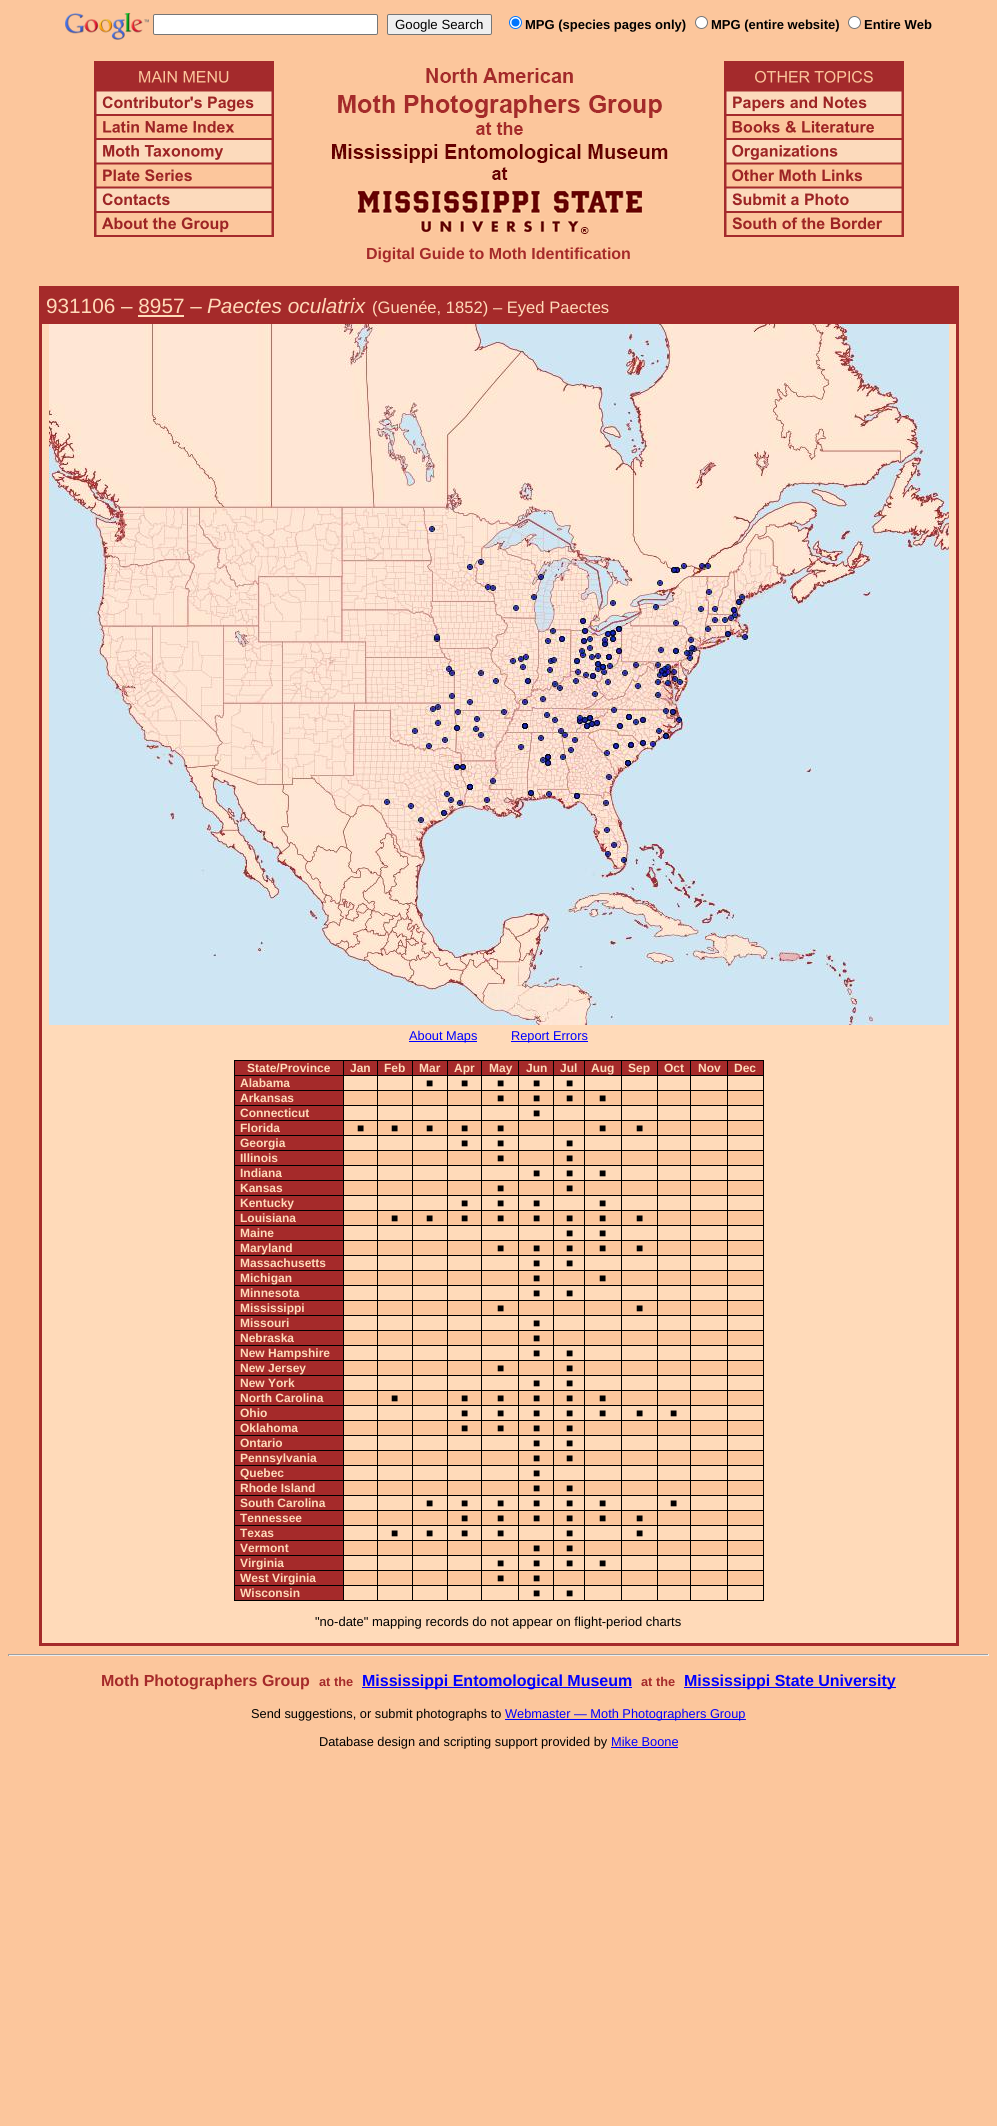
#include <cairo.h>
#include <math.h>
#include <stddef.h>

typedef struct { const char *family; double size; int italic, bold; unsigned color; } style_t;
static cairo_t *ctx;

static void ink(unsigned color) {
    cairo_set_source_rgb(ctx, (color >> 16) / 255.0, (color >> 8 & 255) / 255.0, (color & 255) / 255.0);
}

static void write(double x, double y, const char *s, const style_t *st) {
    cairo_select_font_face(ctx, st->family, st->italic ? CAIRO_FONT_SLANT_ITALIC : CAIRO_FONT_SLANT_NORMAL,
        st->bold ? CAIRO_FONT_WEIGHT_BOLD : CAIRO_FONT_WEIGHT_NORMAL);
    cairo_set_font_size(ctx, st->size);
    ink(st->color);
    cairo_move_to(ctx, x, y);
    cairo_show_text(ctx, s);
}

static void block(double x, double y, double w, double h, unsigned color) {
    ink(color);
    cairo_rectangle(ctx, x, y, w, h);
    cairo_fill(ctx);
}

static void round_path(double x, double y, double w, double h, double r) {
    cairo_new_sub_path(ctx);
    cairo_arc(ctx, x + w - r, y + h - r, r, 0, M_PI / 2);
    cairo_arc(ctx, x + r, y + h - r, r, M_PI / 2, M_PI);
    cairo_arc(ctx, x + r, y + r, r, M_PI, 1.5 * M_PI);
    cairo_arc(ctx, x + w - r, y + r, r, 1.5 * M_PI, 2 * M_PI);
    cairo_close_path(ctx);
}

static void paste(const char *path, double x, double y, double w, double h) {
    cairo_surface_t *image = cairo_image_surface_create_from_png(path);
    cairo_save(ctx);
    cairo_set_source_surface(ctx, image, x, y);
    cairo_rectangle(ctx, x, y, w, h);
    cairo_fill(ctx);
    cairo_restore(ctx);
    cairo_surface_destroy(image);
}

static const style_t s1 = {"Liberation Sans", 13.25, 0, 0, 0x000000};
static const style_t s2 = {"Liberation Sans", 13, 0, 1, 0x000000};
static const style_t s3 = {"Liberation Sans", 16, 0, 1, 0xa52a2a};
static const style_t s4 = {"Liberation Sans", 20.75, 0, 0, 0xffdab9};
static const style_t s5 = {"Liberation Sans", 20.75, 1, 0, 0xffdab9};
static const style_t s6 = {"Liberation Sans", 16.6, 0, 0, 0xffdab9};
static const style_t s7 = {"Liberation Sans", 12.8, 0, 0, 0x0000ff};
static const style_t s8 = {"Liberation Sans", 12, 0, 1, 0xffdab9};
static const style_t s9 = {"Liberation Sans", 12, 0, 0, 0x000000};
static const style_t s10 = {"Liberation Sans", 13, 0, 0, 0x000000};
static const style_t s11 = {"Liberation Sans", 12.8, 0, 1, 0xa52a2a};
static const style_t s12 = {"Liberation Sans", 16, 0, 1, 0x0000ff};
static const style_t s13 = {"Liberation Sans", 12.8, 0, 0, 0x000000};

int main(void) {
    cairo_surface_t *surface = cairo_image_surface_create(CAIRO_FORMAT_RGB24, 997, 2126);
    ctx = cairo_create(surface);
    cairo_font_options_t *options = cairo_font_options_create();
    cairo_font_options_set_hint_metrics(options, CAIRO_HINT_METRICS_OFF);
    cairo_font_options_set_hint_style(options, CAIRO_HINT_STYLE_NONE);
    cairo_set_font_options(ctx, options);
    cairo_set_miter_limit(ctx, 4);
    ink(0xfcc69c);
    cairo_paint(ctx);
    paste("pic1.png", 65, 13, 84, 27);
    ink(0xffffff);
    round_path(153.5, 14.5, 224, 20, 1.5);
    cairo_fill_preserve(ctx);
    ink(0x767676);
    cairo_set_line_width(ctx, 1);
    cairo_stroke(ctx);
    ink(0xefefef);
    round_path(387.5, 14.5, 104, 20, 1.5);
    cairo_fill_preserve(ctx);
    ink(0x767676);
    cairo_stroke(ctx);
    write(395, 29, "Google Search", &s1);
    ink(0xffffff);
    cairo_new_path(ctx);
    cairo_arc(ctx, 515.5, 22.5, 6, 0, 2 * M_PI);
    cairo_fill_preserve(ctx);
    ink(0x0075ff);
    cairo_stroke(ctx);
    cairo_arc(ctx, 515.5, 22.5, 4, 0, 2 * M_PI);
    cairo_fill(ctx);
    write(525, 29, "MPG (species pages only)", &s2);
    ink(0xffffff);
    cairo_new_path(ctx);
    cairo_arc(ctx, 701.5, 22.5, 6, 0, 2 * M_PI);
    cairo_fill_preserve(ctx);
    ink(0x767676);
    cairo_stroke(ctx);
    write(711, 29, "MPG (entire website)", &s2);
    ink(0xffffff);
    cairo_new_path(ctx);
    cairo_arc(ctx, 854.5, 22.5, 6, 0, 2 * M_PI);
    cairo_fill_preserve(ctx);
    ink(0x767676);
    cairo_stroke(ctx);
    write(864, 29, "Entire Web", &s2);
    paste("pic2.png", 94, 61, 180, 176);
    paste("pic3.png", 724, 61, 180, 176);
    paste("pic4.png", 332, 68, 336, 166);
    write(366, 259, "Digital Guide to Moth Identification", &s3);
    block(42, 324, 914, 1319, 0xffdab9);
    block(39, 286, 920, 3, 0xa52a2a);
    block(956, 286, 3, 1360, 0xa52a2a);
    block(39, 1643, 920, 3, 0xa52a2a);
    block(39, 286, 3, 1360, 0xa52a2a);
    block(42, 289, 914, 35, 0xa52a2a);
    write(46, 313, "931106 – 8957 –", &s4);
    write(207, 313, "Paectes oculatrix", &s5);
    write(372, 313, "(Guenée, 1852) – Eyed Paectes", &s6);
    block(138, 315, 46, 2, 0xffdab9);
    paste("pic5.png", 49, 324, 900, 701);
    block(409, 1041, 68, 1, 0x0000ff);
    write(409, 1040, "About Maps", &s7);
    block(511, 1041, 77, 1, 0x0000ff);
    write(511, 1040, "Report Errors", &s7);
    block(234, 1060, 530, 1, 0x000000);
    block(763, 1060, 1, 541, 0x000000);
    block(234, 1600, 530, 1, 0x000000);
    block(234, 1060, 1, 541, 0x000000);
    block(235, 1061, 108, 14, 0xa52a2a);
    write(247, 1072, "State/Province", &s8);
    block(344, 1061, 33, 14, 0xa52a2a);
    block(727, 1075, 37, 1, 0x000000);
    block(727, 1090, 37, 1, 0x000000);
    block(344, 1091, 419, 14, 0xfcc69c);
    block(727, 1105, 37, 1, 0x000000);
    block(727, 1120, 37, 1, 0x000000);
    block(344, 1121, 419, 14, 0xfcc69c);
    block(727, 1135, 37, 1, 0x000000);
    block(727, 1150, 37, 1, 0x000000);
    block(344, 1151, 419, 14, 0xfcc69c);
    block(727, 1165, 37, 1, 0x000000);
    block(727, 1180, 37, 1, 0x000000);
    block(344, 1181, 419, 14, 0xfcc69c);
    block(727, 1195, 37, 1, 0x000000);
    block(727, 1210, 37, 1, 0x000000);
    block(344, 1211, 419, 14, 0xfcc69c);
    block(727, 1225, 37, 1, 0x000000);
    block(727, 1240, 37, 1, 0x000000);
    block(344, 1241, 419, 14, 0xfcc69c);
    block(727, 1255, 37, 1, 0x000000);
    block(727, 1270, 37, 1, 0x000000);
    block(344, 1271, 419, 14, 0xfcc69c);
    block(727, 1285, 37, 1, 0x000000);
    block(727, 1300, 37, 1, 0x000000);
    block(344, 1301, 419, 14, 0xfcc69c);
    block(727, 1315, 37, 1, 0x000000);
    block(727, 1330, 37, 1, 0x000000);
    block(344, 1331, 419, 14, 0xfcc69c);
    block(727, 1345, 37, 1, 0x000000);
    block(727, 1360, 37, 1, 0x000000);
    block(344, 1361, 419, 14, 0xfcc69c);
    block(727, 1375, 37, 1, 0x000000);
    block(727, 1390, 37, 1, 0x000000);
    block(344, 1391, 419, 14, 0xfcc69c);
    block(727, 1405, 37, 1, 0x000000);
    block(727, 1420, 37, 1, 0x000000);
    block(344, 1421, 419, 14, 0xfcc69c);
    block(727, 1435, 37, 1, 0x000000);
    block(727, 1450, 37, 1, 0x000000);
    block(344, 1451, 419, 14, 0xfcc69c);
    block(727, 1465, 37, 1, 0x000000);
    block(727, 1480, 37, 1, 0x000000);
    block(344, 1481, 419, 14, 0xfcc69c);
    block(727, 1495, 37, 1, 0x000000);
    block(727, 1510, 37, 1, 0x000000);
    block(344, 1511, 419, 14, 0xfcc69c);
    block(727, 1525, 37, 1, 0x000000);
    block(727, 1540, 37, 1, 0x000000);
    block(344, 1541, 419, 14, 0xfcc69c);
    block(727, 1555, 37, 1, 0x000000);
    block(727, 1570, 37, 1, 0x000000);
    block(344, 1571, 419, 14, 0xfcc69c);
    block(727, 1585, 37, 1, 0x000000);
    block(727, 1585, 1, 16, 0x000000);
    block(690, 1585, 38, 1, 0x000000);
    block(727, 1570, 1, 16, 0x000000);
    block(690, 1570, 38, 1, 0x000000);
    block(727, 1555, 1, 16, 0x000000);
    block(690, 1555, 38, 1, 0x000000);
    block(727, 1540, 1, 16, 0x000000);
    block(690, 1540, 38, 1, 0x000000);
    block(727, 1525, 1, 16, 0x000000);
    block(690, 1525, 38, 1, 0x000000);
    block(727, 1510, 1, 16, 0x000000);
    block(690, 1510, 38, 1, 0x000000);
    block(727, 1495, 1, 16, 0x000000);
    block(690, 1495, 38, 1, 0x000000);
    block(727, 1480, 1, 16, 0x000000);
    block(690, 1480, 38, 1, 0x000000);
    block(727, 1465, 1, 16, 0x000000);
    block(690, 1465, 38, 1, 0x000000);
    block(727, 1450, 1, 16, 0x000000);
    block(690, 1450, 38, 1, 0x000000);
    block(727, 1435, 1, 16, 0x000000);
    block(690, 1435, 38, 1, 0x000000);
    block(727, 1420, 1, 16, 0x000000);
    block(690, 1420, 38, 1, 0x000000);
    block(727, 1405, 1, 16, 0x000000);
    block(690, 1405, 38, 1, 0x000000);
    block(727, 1390, 1, 16, 0x000000);
    block(690, 1390, 38, 1, 0x000000);
    block(727, 1375, 1, 16, 0x000000);
    block(690, 1375, 38, 1, 0x000000);
    block(727, 1360, 1, 16, 0x000000);
    block(690, 1360, 38, 1, 0x000000);
    block(727, 1345, 1, 16, 0x000000);
    block(690, 1345, 38, 1, 0x000000);
    block(727, 1330, 1, 16, 0x000000);
    block(690, 1330, 38, 1, 0x000000);
    block(727, 1315, 1, 16, 0x000000);
    block(690, 1315, 38, 1, 0x000000);
    block(727, 1300, 1, 16, 0x000000);
    block(690, 1300, 38, 1, 0x000000);
    block(727, 1285, 1, 16, 0x000000);
    block(690, 1285, 38, 1, 0x000000);
    block(727, 1270, 1, 16, 0x000000);
    block(690, 1270, 38, 1, 0x000000);
    block(727, 1255, 1, 16, 0x000000);
    block(690, 1255, 38, 1, 0x000000);
    block(727, 1240, 1, 16, 0x000000);
    block(690, 1240, 38, 1, 0x000000);
    block(727, 1225, 1, 16, 0x000000);
    block(690, 1225, 38, 1, 0x000000);
    block(727, 1210, 1, 16, 0x000000);
    block(690, 1210, 38, 1, 0x000000);
    block(727, 1195, 1, 16, 0x000000);
    block(690, 1195, 38, 1, 0x000000);
    block(727, 1180, 1, 16, 0x000000);
    block(690, 1180, 38, 1, 0x000000);
    block(727, 1165, 1, 16, 0x000000);
    block(690, 1165, 38, 1, 0x000000);
    block(727, 1150, 1, 16, 0x000000);
    block(690, 1150, 38, 1, 0x000000);
    block(727, 1135, 1, 16, 0x000000);
    block(690, 1135, 38, 1, 0x000000);
    block(727, 1120, 1, 16, 0x000000);
    block(690, 1120, 38, 1, 0x000000);
    block(727, 1105, 1, 16, 0x000000);
    block(690, 1105, 38, 1, 0x000000);
    block(727, 1090, 1, 16, 0x000000);
    block(690, 1090, 38, 1, 0x000000);
    block(727, 1075, 1, 16, 0x000000);
    block(690, 1075, 38, 1, 0x000000);
    block(690, 1585, 1, 16, 0x000000);
    block(657, 1585, 34, 1, 0x000000);
    block(690, 1570, 1, 16, 0x000000);
    block(657, 1570, 34, 1, 0x000000);
    block(690, 1555, 1, 16, 0x000000);
    block(657, 1555, 34, 1, 0x000000);
    block(690, 1540, 1, 16, 0x000000);
    block(657, 1540, 34, 1, 0x000000);
    block(690, 1525, 1, 16, 0x000000);
    block(657, 1525, 34, 1, 0x000000);
    block(690, 1510, 1, 16, 0x000000);
    block(657, 1510, 34, 1, 0x000000);
    block(690, 1495, 1, 16, 0x000000);
    block(657, 1495, 34, 1, 0x000000);
    block(690, 1480, 1, 16, 0x000000);
    block(657, 1480, 34, 1, 0x000000);
    block(690, 1465, 1, 16, 0x000000);
    block(657, 1465, 34, 1, 0x000000);
    block(690, 1450, 1, 16, 0x000000);
    block(657, 1450, 34, 1, 0x000000);
    block(690, 1435, 1, 16, 0x000000);
    block(657, 1435, 34, 1, 0x000000);
    block(690, 1420, 1, 16, 0x000000);
    block(657, 1420, 34, 1, 0x000000);
    block(690, 1405, 1, 16, 0x000000);
    block(657, 1405, 34, 1, 0x000000);
    block(690, 1390, 1, 16, 0x000000);
    block(657, 1390, 34, 1, 0x000000);
    block(690, 1375, 1, 16, 0x000000);
    block(657, 1375, 34, 1, 0x000000);
    block(690, 1360, 1, 16, 0x000000);
    block(657, 1360, 34, 1, 0x000000);
    block(690, 1345, 1, 16, 0x000000);
    block(657, 1345, 34, 1, 0x000000);
    block(690, 1330, 1, 16, 0x000000);
    block(657, 1330, 34, 1, 0x000000);
    block(690, 1315, 1, 16, 0x000000);
    block(657, 1315, 34, 1, 0x000000);
    block(690, 1300, 1, 16, 0x000000);
    block(657, 1300, 34, 1, 0x000000);
    block(690, 1285, 1, 16, 0x000000);
    block(657, 1285, 34, 1, 0x000000);
    block(690, 1270, 1, 16, 0x000000);
    block(657, 1270, 34, 1, 0x000000);
    block(690, 1255, 1, 16, 0x000000);
    block(657, 1255, 34, 1, 0x000000);
    block(690, 1240, 1, 16, 0x000000);
    block(657, 1240, 34, 1, 0x000000);
    block(690, 1225, 1, 16, 0x000000);
    block(657, 1225, 34, 1, 0x000000);
    block(690, 1210, 1, 16, 0x000000);
    block(657, 1210, 34, 1, 0x000000);
    block(690, 1195, 1, 16, 0x000000);
    block(657, 1195, 34, 1, 0x000000);
    block(690, 1180, 1, 16, 0x000000);
    block(657, 1180, 34, 1, 0x000000);
    block(690, 1165, 1, 16, 0x000000);
    block(657, 1165, 34, 1, 0x000000);
    block(690, 1150, 1, 16, 0x000000);
    block(657, 1150, 34, 1, 0x000000);
    block(690, 1135, 1, 16, 0x000000);
    block(657, 1135, 34, 1, 0x000000);
    block(690, 1120, 1, 16, 0x000000);
    block(657, 1120, 34, 1, 0x000000);
    block(690, 1105, 1, 16, 0x000000);
    block(657, 1105, 34, 1, 0x000000);
    block(690, 1090, 1, 16, 0x000000);
    block(657, 1090, 34, 1, 0x000000);
    block(690, 1075, 1, 16, 0x000000);
    block(657, 1075, 34, 1, 0x000000);
    block(657, 1585, 1, 16, 0x000000);
    block(621, 1585, 37, 1, 0x000000);
    block(657, 1570, 1, 16, 0x000000);
    block(621, 1570, 37, 1, 0x000000);
    block(657, 1555, 1, 16, 0x000000);
    block(621, 1555, 37, 1, 0x000000);
    block(657, 1540, 1, 16, 0x000000);
    block(621, 1540, 37, 1, 0x000000);
    block(657, 1525, 1, 16, 0x000000);
    block(621, 1525, 37, 1, 0x000000);
    block(657, 1510, 1, 16, 0x000000);
    block(621, 1510, 37, 1, 0x000000);
    block(657, 1495, 1, 16, 0x000000);
    block(621, 1495, 37, 1, 0x000000);
    block(657, 1480, 1, 16, 0x000000);
    block(621, 1480, 37, 1, 0x000000);
    block(657, 1465, 1, 16, 0x000000);
    block(621, 1465, 37, 1, 0x000000);
    block(657, 1450, 1, 16, 0x000000);
    block(621, 1450, 37, 1, 0x000000);
    block(657, 1435, 1, 16, 0x000000);
    block(621, 1435, 37, 1, 0x000000);
    block(657, 1420, 1, 16, 0x000000);
    block(621, 1420, 37, 1, 0x000000);
    block(657, 1405, 1, 16, 0x000000);
    block(621, 1405, 37, 1, 0x000000);
    block(657, 1390, 1, 16, 0x000000);
    block(621, 1390, 37, 1, 0x000000);
    block(657, 1375, 1, 16, 0x000000);
    block(621, 1375, 37, 1, 0x000000);
    block(657, 1360, 1, 16, 0x000000);
    block(621, 1360, 37, 1, 0x000000);
    block(657, 1345, 1, 16, 0x000000);
    block(621, 1345, 37, 1, 0x000000);
    block(657, 1330, 1, 16, 0x000000);
    block(621, 1330, 37, 1, 0x000000);
    block(657, 1315, 1, 16, 0x000000);
    block(621, 1315, 37, 1, 0x000000);
    block(657, 1300, 1, 16, 0x000000);
    block(621, 1300, 37, 1, 0x000000);
    block(657, 1285, 1, 16, 0x000000);
    block(621, 1285, 37, 1, 0x000000);
    block(657, 1270, 1, 16, 0x000000);
    block(621, 1270, 37, 1, 0x000000);
    block(657, 1255, 1, 16, 0x000000);
    block(621, 1255, 37, 1, 0x000000);
    block(657, 1240, 1, 16, 0x000000);
    block(621, 1240, 37, 1, 0x000000);
    block(657, 1225, 1, 16, 0x000000);
    block(621, 1225, 37, 1, 0x000000);
    block(657, 1210, 1, 16, 0x000000);
    block(621, 1210, 37, 1, 0x000000);
    block(657, 1195, 1, 16, 0x000000);
    block(621, 1195, 37, 1, 0x000000);
    block(657, 1180, 1, 16, 0x000000);
    block(621, 1180, 37, 1, 0x000000);
    block(657, 1165, 1, 16, 0x000000);
    block(621, 1165, 37, 1, 0x000000);
    block(657, 1150, 1, 16, 0x000000);
    block(621, 1150, 37, 1, 0x000000);
    block(657, 1135, 1, 16, 0x000000);
    block(621, 1135, 37, 1, 0x000000);
    block(657, 1120, 1, 16, 0x000000);
    block(621, 1120, 37, 1, 0x000000);
    block(657, 1105, 1, 16, 0x000000);
    block(621, 1105, 37, 1, 0x000000);
    block(657, 1090, 1, 16, 0x000000);
    block(621, 1090, 37, 1, 0x000000);
    block(657, 1075, 1, 16, 0x000000);
    block(621, 1075, 37, 1, 0x000000);
    block(621, 1585, 1, 16, 0x000000);
    block(584, 1585, 38, 1, 0x000000);
    block(621, 1570, 1, 16, 0x000000);
    block(584, 1570, 38, 1, 0x000000);
    block(621, 1555, 1, 16, 0x000000);
    block(584, 1555, 38, 1, 0x000000);
    block(621, 1540, 1, 16, 0x000000);
    block(584, 1540, 38, 1, 0x000000);
    block(621, 1525, 1, 16, 0x000000);
    block(584, 1525, 38, 1, 0x000000);
    block(621, 1510, 1, 16, 0x000000);
    block(584, 1510, 38, 1, 0x000000);
    block(621, 1495, 1, 16, 0x000000);
    block(584, 1495, 38, 1, 0x000000);
    block(621, 1480, 1, 16, 0x000000);
    block(584, 1480, 38, 1, 0x000000);
    block(621, 1465, 1, 16, 0x000000);
    block(584, 1465, 38, 1, 0x000000);
    block(621, 1450, 1, 16, 0x000000);
    block(584, 1450, 38, 1, 0x000000);
    block(621, 1435, 1, 16, 0x000000);
    block(584, 1435, 38, 1, 0x000000);
    block(621, 1420, 1, 16, 0x000000);
    block(584, 1420, 38, 1, 0x000000);
    block(621, 1405, 1, 16, 0x000000);
    block(584, 1405, 38, 1, 0x000000);
    block(621, 1390, 1, 16, 0x000000);
    block(584, 1390, 38, 1, 0x000000);
    block(621, 1375, 1, 16, 0x000000);
    block(584, 1375, 38, 1, 0x000000);
    block(621, 1360, 1, 16, 0x000000);
    block(584, 1360, 38, 1, 0x000000);
    block(621, 1345, 1, 16, 0x000000);
    block(584, 1345, 38, 1, 0x000000);
    block(621, 1330, 1, 16, 0x000000);
    block(584, 1330, 38, 1, 0x000000);
    block(621, 1315, 1, 16, 0x000000);
    block(584, 1315, 38, 1, 0x000000);
    block(621, 1300, 1, 16, 0x000000);
    block(584, 1300, 38, 1, 0x000000);
    block(621, 1285, 1, 16, 0x000000);
    block(584, 1285, 38, 1, 0x000000);
    block(621, 1270, 1, 16, 0x000000);
    block(584, 1270, 38, 1, 0x000000);
    block(621, 1255, 1, 16, 0x000000);
    block(584, 1255, 38, 1, 0x000000);
    block(621, 1240, 1, 16, 0x000000);
    block(584, 1240, 38, 1, 0x000000);
    block(621, 1225, 1, 16, 0x000000);
    block(584, 1225, 38, 1, 0x000000);
    block(621, 1210, 1, 16, 0x000000);
    block(584, 1210, 38, 1, 0x000000);
    block(621, 1195, 1, 16, 0x000000);
    block(584, 1195, 38, 1, 0x000000);
    block(621, 1180, 1, 16, 0x000000);
    block(584, 1180, 38, 1, 0x000000);
    block(621, 1165, 1, 16, 0x000000);
    block(584, 1165, 38, 1, 0x000000);
    block(621, 1150, 1, 16, 0x000000);
    block(584, 1150, 38, 1, 0x000000);
    block(621, 1135, 1, 16, 0x000000);
    block(584, 1135, 38, 1, 0x000000);
    block(621, 1120, 1, 16, 0x000000);
    block(584, 1120, 38, 1, 0x000000);
    block(621, 1105, 1, 16, 0x000000);
    block(584, 1105, 38, 1, 0x000000);
    block(621, 1090, 1, 16, 0x000000);
    block(584, 1090, 38, 1, 0x000000);
    block(621, 1075, 1, 16, 0x000000);
    block(584, 1075, 38, 1, 0x000000);
    block(584, 1585, 1, 16, 0x000000);
    block(553, 1585, 32, 1, 0x000000);
    block(584, 1570, 1, 16, 0x000000);
    block(553, 1570, 32, 1, 0x000000);
    block(584, 1555, 1, 16, 0x000000);
    block(553, 1555, 32, 1, 0x000000);
    block(584, 1540, 1, 16, 0x000000);
    block(553, 1540, 32, 1, 0x000000);
    block(584, 1525, 1, 16, 0x000000);
    block(553, 1525, 32, 1, 0x000000);
    block(584, 1510, 1, 16, 0x000000);
    block(553, 1510, 32, 1, 0x000000);
    block(584, 1495, 1, 16, 0x000000);
    block(553, 1495, 32, 1, 0x000000);
    block(584, 1480, 1, 16, 0x000000);
    block(553, 1480, 32, 1, 0x000000);
    block(584, 1465, 1, 16, 0x000000);
    block(553, 1465, 32, 1, 0x000000);
    block(584, 1450, 1, 16, 0x000000);
    block(553, 1450, 32, 1, 0x000000);
    block(584, 1435, 1, 16, 0x000000);
    block(553, 1435, 32, 1, 0x000000);
    block(584, 1420, 1, 16, 0x000000);
    block(553, 1420, 32, 1, 0x000000);
    block(584, 1405, 1, 16, 0x000000);
    block(553, 1405, 32, 1, 0x000000);
    block(584, 1390, 1, 16, 0x000000);
    block(553, 1390, 32, 1, 0x000000);
    block(584, 1375, 1, 16, 0x000000);
    block(553, 1375, 32, 1, 0x000000);
    block(584, 1360, 1, 16, 0x000000);
    block(553, 1360, 32, 1, 0x000000);
    block(584, 1345, 1, 16, 0x000000);
    block(553, 1345, 32, 1, 0x000000);
    block(584, 1330, 1, 16, 0x000000);
    block(553, 1330, 32, 1, 0x000000);
    block(584, 1315, 1, 16, 0x000000);
    block(553, 1315, 32, 1, 0x000000);
    block(584, 1300, 1, 16, 0x000000);
    block(553, 1300, 32, 1, 0x000000);
    block(584, 1285, 1, 16, 0x000000);
    block(553, 1285, 32, 1, 0x000000);
    block(584, 1270, 1, 16, 0x000000);
    block(553, 1270, 32, 1, 0x000000);
    block(584, 1255, 1, 16, 0x000000);
    block(553, 1255, 32, 1, 0x000000);
    block(584, 1240, 1, 16, 0x000000);
    block(553, 1240, 32, 1, 0x000000);
    block(584, 1225, 1, 16, 0x000000);
    block(553, 1225, 32, 1, 0x000000);
    block(584, 1210, 1, 16, 0x000000);
    block(553, 1210, 32, 1, 0x000000);
    block(584, 1195, 1, 16, 0x000000);
    block(553, 1195, 32, 1, 0x000000);
    block(584, 1180, 1, 16, 0x000000);
    block(553, 1180, 32, 1, 0x000000);
    block(584, 1165, 1, 16, 0x000000);
    block(553, 1165, 32, 1, 0x000000);
    block(584, 1150, 1, 16, 0x000000);
    block(553, 1150, 32, 1, 0x000000);
    block(584, 1135, 1, 16, 0x000000);
    block(553, 1135, 32, 1, 0x000000);
    block(584, 1120, 1, 16, 0x000000);
    block(553, 1120, 32, 1, 0x000000);
    block(584, 1105, 1, 16, 0x000000);
    block(553, 1105, 32, 1, 0x000000);
    block(584, 1090, 1, 16, 0x000000);
    block(553, 1090, 32, 1, 0x000000);
    block(584, 1075, 1, 16, 0x000000);
    block(553, 1075, 32, 1, 0x000000);
    block(553, 1585, 1, 16, 0x000000);
    block(518, 1585, 36, 1, 0x000000);
    block(553, 1570, 1, 16, 0x000000);
    block(518, 1570, 36, 1, 0x000000);
    block(553, 1555, 1, 16, 0x000000);
    block(518, 1555, 36, 1, 0x000000);
    block(553, 1540, 1, 16, 0x000000);
    block(518, 1540, 36, 1, 0x000000);
    block(553, 1525, 1, 16, 0x000000);
    block(518, 1525, 36, 1, 0x000000);
    block(553, 1510, 1, 16, 0x000000);
    block(518, 1510, 36, 1, 0x000000);
    block(553, 1495, 1, 16, 0x000000);
    block(518, 1495, 36, 1, 0x000000);
    block(553, 1480, 1, 16, 0x000000);
    block(518, 1480, 36, 1, 0x000000);
    block(553, 1465, 1, 16, 0x000000);
    block(518, 1465, 36, 1, 0x000000);
    block(553, 1450, 1, 16, 0x000000);
    block(518, 1450, 36, 1, 0x000000);
    block(553, 1435, 1, 16, 0x000000);
    block(518, 1435, 36, 1, 0x000000);
    block(553, 1420, 1, 16, 0x000000);
    block(518, 1420, 36, 1, 0x000000);
    block(553, 1405, 1, 16, 0x000000);
    block(518, 1405, 36, 1, 0x000000);
    block(553, 1390, 1, 16, 0x000000);
    block(518, 1390, 36, 1, 0x000000);
    block(553, 1375, 1, 16, 0x000000);
    block(518, 1375, 36, 1, 0x000000);
    block(553, 1360, 1, 16, 0x000000);
    block(518, 1360, 36, 1, 0x000000);
    block(553, 1345, 1, 16, 0x000000);
    block(518, 1345, 36, 1, 0x000000);
    block(553, 1330, 1, 16, 0x000000);
    block(518, 1330, 36, 1, 0x000000);
    block(553, 1315, 1, 16, 0x000000);
    block(518, 1315, 36, 1, 0x000000);
    block(553, 1300, 1, 16, 0x000000);
    block(518, 1300, 36, 1, 0x000000);
    block(553, 1285, 1, 16, 0x000000);
    block(518, 1285, 36, 1, 0x000000);
    block(553, 1270, 1, 16, 0x000000);
    block(518, 1270, 36, 1, 0x000000);
    block(553, 1255, 1, 16, 0x000000);
    block(518, 1255, 36, 1, 0x000000);
    block(553, 1240, 1, 16, 0x000000);
    block(518, 1240, 36, 1, 0x000000);
    block(553, 1225, 1, 16, 0x000000);
    block(518, 1225, 36, 1, 0x000000);
    block(553, 1210, 1, 16, 0x000000);
    block(518, 1210, 36, 1, 0x000000);
    block(553, 1195, 1, 16, 0x000000);
    block(518, 1195, 36, 1, 0x000000);
    block(553, 1180, 1, 16, 0x000000);
    block(518, 1180, 36, 1, 0x000000);
    block(553, 1165, 1, 16, 0x000000);
    block(518, 1165, 36, 1, 0x000000);
    block(553, 1150, 1, 16, 0x000000);
    block(518, 1150, 36, 1, 0x000000);
    block(553, 1135, 1, 16, 0x000000);
    block(518, 1135, 36, 1, 0x000000);
    block(553, 1120, 1, 16, 0x000000);
    block(518, 1120, 36, 1, 0x000000);
    block(553, 1105, 1, 16, 0x000000);
    block(518, 1105, 36, 1, 0x000000);
    block(553, 1090, 1, 16, 0x000000);
    block(518, 1090, 36, 1, 0x000000);
    block(553, 1075, 1, 16, 0x000000);
    block(518, 1075, 36, 1, 0x000000);
    block(518, 1585, 1, 16, 0x000000);
    block(481, 1585, 38, 1, 0x000000);
    block(518, 1570, 1, 16, 0x000000);
    block(481, 1570, 38, 1, 0x000000);
    block(518, 1555, 1, 16, 0x000000);
    block(481, 1555, 38, 1, 0x000000);
    block(518, 1540, 1, 16, 0x000000);
    block(481, 1540, 38, 1, 0x000000);
    block(518, 1525, 1, 16, 0x000000);
    block(481, 1525, 38, 1, 0x000000);
    block(518, 1510, 1, 16, 0x000000);
    block(481, 1510, 38, 1, 0x000000);
    block(518, 1495, 1, 16, 0x000000);
    block(481, 1495, 38, 1, 0x000000);
    block(518, 1480, 1, 16, 0x000000);
    block(481, 1480, 38, 1, 0x000000);
    block(518, 1465, 1, 16, 0x000000);
    block(481, 1465, 38, 1, 0x000000);
    block(518, 1450, 1, 16, 0x000000);
    block(481, 1450, 38, 1, 0x000000);
    block(518, 1435, 1, 16, 0x000000);
    block(481, 1435, 38, 1, 0x000000);
    block(518, 1420, 1, 16, 0x000000);
    block(481, 1420, 38, 1, 0x000000);
    block(518, 1405, 1, 16, 0x000000);
    block(481, 1405, 38, 1, 0x000000);
    block(518, 1390, 1, 16, 0x000000);
    block(481, 1390, 38, 1, 0x000000);
    block(518, 1375, 1, 16, 0x000000);
    block(481, 1375, 38, 1, 0x000000);
    block(518, 1360, 1, 16, 0x000000);
    block(481, 1360, 38, 1, 0x000000);
    block(518, 1345, 1, 16, 0x000000);
    block(481, 1345, 38, 1, 0x000000);
    block(518, 1330, 1, 16, 0x000000);
    block(481, 1330, 38, 1, 0x000000);
    block(518, 1315, 1, 16, 0x000000);
    block(481, 1315, 38, 1, 0x000000);
    block(518, 1300, 1, 16, 0x000000);
    block(481, 1300, 38, 1, 0x000000);
    block(518, 1285, 1, 16, 0x000000);
    block(481, 1285, 38, 1, 0x000000);
    block(518, 1270, 1, 16, 0x000000);
    block(481, 1270, 38, 1, 0x000000);
    block(518, 1255, 1, 16, 0x000000);
    block(481, 1255, 38, 1, 0x000000);
    block(518, 1240, 1, 16, 0x000000);
    block(481, 1240, 38, 1, 0x000000);
    block(518, 1225, 1, 16, 0x000000);
    block(481, 1225, 38, 1, 0x000000);
    block(518, 1210, 1, 16, 0x000000);
    block(481, 1210, 38, 1, 0x000000);
    block(518, 1195, 1, 16, 0x000000);
    block(481, 1195, 38, 1, 0x000000);
    block(518, 1180, 1, 16, 0x000000);
    block(481, 1180, 38, 1, 0x000000);
    block(518, 1165, 1, 16, 0x000000);
    block(481, 1165, 38, 1, 0x000000);
    block(518, 1150, 1, 16, 0x000000);
    block(481, 1150, 38, 1, 0x000000);
    block(518, 1135, 1, 16, 0x000000);
    block(481, 1135, 38, 1, 0x000000);
    block(518, 1120, 1, 16, 0x000000);
    block(481, 1120, 38, 1, 0x000000);
    block(518, 1105, 1, 16, 0x000000);
    block(481, 1105, 38, 1, 0x000000);
    block(518, 1090, 1, 16, 0x000000);
    block(481, 1090, 38, 1, 0x000000);
    block(518, 1075, 1, 16, 0x000000);
    block(481, 1075, 38, 1, 0x000000);
    block(481, 1585, 1, 16, 0x000000);
    block(447, 1585, 35, 1, 0x000000);
    block(481, 1570, 1, 16, 0x000000);
    block(447, 1570, 35, 1, 0x000000);
    block(481, 1555, 1, 16, 0x000000);
    block(447, 1555, 35, 1, 0x000000);
    block(481, 1540, 1, 16, 0x000000);
    block(447, 1540, 35, 1, 0x000000);
    block(481, 1525, 1, 16, 0x000000);
    block(447, 1525, 35, 1, 0x000000);
    block(481, 1510, 1, 16, 0x000000);
    block(447, 1510, 35, 1, 0x000000);
    block(481, 1495, 1, 16, 0x000000);
    block(447, 1495, 35, 1, 0x000000);
    block(481, 1480, 1, 16, 0x000000);
    block(447, 1480, 35, 1, 0x000000);
    block(481, 1465, 1, 16, 0x000000);
    block(447, 1465, 35, 1, 0x000000);
    block(481, 1450, 1, 16, 0x000000);
    block(447, 1450, 35, 1, 0x000000);
    block(481, 1435, 1, 16, 0x000000);
    block(447, 1435, 35, 1, 0x000000);
    block(481, 1420, 1, 16, 0x000000);
    block(447, 1420, 35, 1, 0x000000);
    block(481, 1405, 1, 16, 0x000000);
    block(447, 1405, 35, 1, 0x000000);
    block(481, 1390, 1, 16, 0x000000);
    block(447, 1390, 35, 1, 0x000000);
    block(481, 1375, 1, 16, 0x000000);
    block(447, 1375, 35, 1, 0x000000);
    block(481, 1360, 1, 16, 0x000000);
    block(447, 1360, 35, 1, 0x000000);
    block(481, 1345, 1, 16, 0x000000);
    block(447, 1345, 35, 1, 0x000000);
    block(481, 1330, 1, 16, 0x000000);
    block(447, 1330, 35, 1, 0x000000);
    block(481, 1315, 1, 16, 0x000000);
    block(447, 1315, 35, 1, 0x000000);
    block(481, 1300, 1, 16, 0x000000);
    block(447, 1300, 35, 1, 0x000000);
    block(481, 1285, 1, 16, 0x000000);
    block(447, 1285, 35, 1, 0x000000);
    block(481, 1270, 1, 16, 0x000000);
    block(447, 1270, 35, 1, 0x000000);
    block(481, 1255, 1, 16, 0x000000);
    block(447, 1255, 35, 1, 0x000000);
    block(481, 1240, 1, 16, 0x000000);
    block(447, 1240, 35, 1, 0x000000);
    block(481, 1225, 1, 16, 0x000000);
    block(447, 1225, 35, 1, 0x000000);
    block(481, 1210, 1, 16, 0x000000);
    block(447, 1210, 35, 1, 0x000000);
    block(481, 1195, 1, 16, 0x000000);
    block(447, 1195, 35, 1, 0x000000);
    block(481, 1180, 1, 16, 0x000000);
    block(447, 1180, 35, 1, 0x000000);
    block(481, 1165, 1, 16, 0x000000);
    block(447, 1165, 35, 1, 0x000000);
    block(481, 1150, 1, 16, 0x000000);
    block(447, 1150, 35, 1, 0x000000);
    block(481, 1135, 1, 16, 0x000000);
    block(447, 1135, 35, 1, 0x000000);
    block(481, 1120, 1, 16, 0x000000);
    block(447, 1120, 35, 1, 0x000000);
    block(481, 1105, 1, 16, 0x000000);
    block(447, 1105, 35, 1, 0x000000);
    block(481, 1090, 1, 16, 0x000000);
    block(447, 1090, 35, 1, 0x000000);
    block(481, 1075, 1, 16, 0x000000);
    block(447, 1075, 35, 1, 0x000000);
    block(447, 1585, 1, 16, 0x000000);
    block(412, 1585, 36, 1, 0x000000);
    block(447, 1570, 1, 16, 0x000000);
    block(412, 1570, 36, 1, 0x000000);
    block(447, 1555, 1, 16, 0x000000);
    block(412, 1555, 36, 1, 0x000000);
    block(447, 1540, 1, 16, 0x000000);
    block(412, 1540, 36, 1, 0x000000);
    block(447, 1525, 1, 16, 0x000000);
    block(412, 1525, 36, 1, 0x000000);
    block(447, 1510, 1, 16, 0x000000);
    block(412, 1510, 36, 1, 0x000000);
    block(447, 1495, 1, 16, 0x000000);
    block(412, 1495, 36, 1, 0x000000);
    block(447, 1480, 1, 16, 0x000000);
    block(412, 1480, 36, 1, 0x000000);
    block(447, 1465, 1, 16, 0x000000);
    block(412, 1465, 36, 1, 0x000000);
    block(447, 1450, 1, 16, 0x000000);
    block(412, 1450, 36, 1, 0x000000);
    block(447, 1435, 1, 16, 0x000000);
    block(412, 1435, 36, 1, 0x000000);
    block(447, 1420, 1, 16, 0x000000);
    block(412, 1420, 36, 1, 0x000000);
    block(447, 1405, 1, 16, 0x000000);
    block(412, 1405, 36, 1, 0x000000);
    block(447, 1390, 1, 16, 0x000000);
    block(412, 1390, 36, 1, 0x000000);
    block(447, 1375, 1, 16, 0x000000);
    block(412, 1375, 36, 1, 0x000000);
    block(447, 1360, 1, 16, 0x000000);
    block(412, 1360, 36, 1, 0x000000);
    block(447, 1345, 1, 16, 0x000000);
    block(412, 1345, 36, 1, 0x000000);
    block(447, 1330, 1, 16, 0x000000);
    block(412, 1330, 36, 1, 0x000000);
    block(447, 1315, 1, 16, 0x000000);
    block(412, 1315, 36, 1, 0x000000);
    block(447, 1300, 1, 16, 0x000000);
    block(412, 1300, 36, 1, 0x000000);
    block(447, 1285, 1, 16, 0x000000);
    block(412, 1285, 36, 1, 0x000000);
    block(447, 1270, 1, 16, 0x000000);
    block(412, 1270, 36, 1, 0x000000);
    block(447, 1255, 1, 16, 0x000000);
    block(412, 1255, 36, 1, 0x000000);
    block(447, 1240, 1, 16, 0x000000);
    block(412, 1240, 36, 1, 0x000000);
    block(447, 1225, 1, 16, 0x000000);
    block(412, 1225, 36, 1, 0x000000);
    block(447, 1210, 1, 16, 0x000000);
    block(412, 1210, 36, 1, 0x000000);
    block(447, 1195, 1, 16, 0x000000);
    block(412, 1195, 36, 1, 0x000000);
    block(447, 1180, 1, 16, 0x000000);
    block(412, 1180, 36, 1, 0x000000);
    block(447, 1165, 1, 16, 0x000000);
    block(412, 1165, 36, 1, 0x000000);
    block(447, 1150, 1, 16, 0x000000);
    block(412, 1150, 36, 1, 0x000000);
    block(447, 1135, 1, 16, 0x000000);
    block(412, 1135, 36, 1, 0x000000);
    block(447, 1120, 1, 16, 0x000000);
    block(412, 1120, 36, 1, 0x000000);
    block(447, 1105, 1, 16, 0x000000);
    block(412, 1105, 36, 1, 0x000000);
    block(447, 1090, 1, 16, 0x000000);
    block(412, 1090, 36, 1, 0x000000);
    block(447, 1075, 1, 16, 0x000000);
    block(412, 1075, 36, 1, 0x000000);
    block(412, 1585, 1, 16, 0x000000);
    block(377, 1585, 36, 1, 0x000000);
    block(412, 1570, 1, 16, 0x000000);
    block(377, 1570, 36, 1, 0x000000);
    block(412, 1555, 1, 16, 0x000000);
    block(377, 1555, 36, 1, 0x000000);
    block(412, 1540, 1, 16, 0x000000);
    block(377, 1540, 36, 1, 0x000000);
    block(412, 1525, 1, 16, 0x000000);
    block(377, 1525, 36, 1, 0x000000);
    block(412, 1510, 1, 16, 0x000000);
    block(377, 1510, 36, 1, 0x000000);
    block(412, 1495, 1, 16, 0x000000);
    block(377, 1495, 36, 1, 0x000000);
    block(412, 1480, 1, 16, 0x000000);
    block(377, 1480, 36, 1, 0x000000);
    block(412, 1465, 1, 16, 0x000000);
    block(377, 1465, 36, 1, 0x000000);
    block(412, 1450, 1, 16, 0x000000);
    block(377, 1450, 36, 1, 0x000000);
    block(412, 1435, 1, 16, 0x000000);
    block(377, 1435, 36, 1, 0x000000);
    block(412, 1420, 1, 16, 0x000000);
    block(377, 1420, 36, 1, 0x000000);
    block(412, 1405, 1, 16, 0x000000);
    block(377, 1405, 36, 1, 0x000000);
    block(412, 1390, 1, 16, 0x000000);
    block(377, 1390, 36, 1, 0x000000);
    block(412, 1375, 1, 16, 0x000000);
    block(377, 1375, 36, 1, 0x000000);
    block(412, 1360, 1, 16, 0x000000);
    block(377, 1360, 36, 1, 0x000000);
    block(412, 1345, 1, 16, 0x000000);
    block(377, 1345, 36, 1, 0x000000);
    block(412, 1330, 1, 16, 0x000000);
    block(377, 1330, 36, 1, 0x000000);
    block(412, 1315, 1, 16, 0x000000);
    block(377, 1315, 36, 1, 0x000000);
    block(412, 1300, 1, 16, 0x000000);
    block(377, 1300, 36, 1, 0x000000);
    block(412, 1285, 1, 16, 0x000000);
    block(377, 1285, 36, 1, 0x000000);
    block(412, 1270, 1, 16, 0x000000);
    block(377, 1270, 36, 1, 0x000000);
    block(412, 1255, 1, 16, 0x000000);
    block(377, 1255, 36, 1, 0x000000);
    block(412, 1240, 1, 16, 0x000000);
    block(377, 1240, 36, 1, 0x000000);
    block(412, 1225, 1, 16, 0x000000);
    block(377, 1225, 36, 1, 0x000000);
    block(412, 1210, 1, 16, 0x000000);
    block(377, 1210, 36, 1, 0x000000);
    block(412, 1195, 1, 16, 0x000000);
    block(377, 1195, 36, 1, 0x000000);
    block(412, 1180, 1, 16, 0x000000);
    block(377, 1180, 36, 1, 0x000000);
    block(412, 1165, 1, 16, 0x000000);
    block(377, 1165, 36, 1, 0x000000);
    block(412, 1150, 1, 16, 0x000000);
    block(377, 1150, 36, 1, 0x000000);
    block(412, 1135, 1, 16, 0x000000);
    block(377, 1135, 36, 1, 0x000000);
    block(412, 1120, 1, 16, 0x000000);
    block(377, 1120, 36, 1, 0x000000);
    block(412, 1105, 1, 16, 0x000000);
    block(377, 1105, 36, 1, 0x000000);
    block(412, 1090, 1, 16, 0x000000);
    block(377, 1090, 36, 1, 0x000000);
    block(412, 1075, 1, 16, 0x000000);
    block(377, 1075, 36, 1, 0x000000);
    block(377, 1585, 1, 16, 0x000000);
    block(343, 1585, 35, 1, 0x000000);
    block(377, 1570, 1, 16, 0x000000);
    block(343, 1570, 35, 1, 0x000000);
    block(377, 1555, 1, 16, 0x000000);
    block(343, 1555, 35, 1, 0x000000);
    block(377, 1540, 1, 16, 0x000000);
    block(343, 1540, 35, 1, 0x000000);
    block(377, 1525, 1, 16, 0x000000);
    block(343, 1525, 35, 1, 0x000000);
    block(377, 1510, 1, 16, 0x000000);
    block(343, 1510, 35, 1, 0x000000);
    block(377, 1495, 1, 16, 0x000000);
    block(343, 1495, 35, 1, 0x000000);
    block(377, 1480, 1, 16, 0x000000);
    block(343, 1480, 35, 1, 0x000000);
    block(377, 1465, 1, 16, 0x000000);
    block(343, 1465, 35, 1, 0x000000);
    block(377, 1450, 1, 16, 0x000000);
    block(343, 1450, 35, 1, 0x000000);
    block(377, 1435, 1, 16, 0x000000);
    block(343, 1435, 35, 1, 0x000000);
    block(377, 1420, 1, 16, 0x000000);
    block(343, 1420, 35, 1, 0x000000);
    block(377, 1405, 1, 16, 0x000000);
    block(343, 1405, 35, 1, 0x000000);
    block(377, 1390, 1, 16, 0x000000);
    block(343, 1390, 35, 1, 0x000000);
    block(377, 1375, 1, 16, 0x000000);
    block(343, 1375, 35, 1, 0x000000);
    block(377, 1360, 1, 16, 0x000000);
    block(343, 1360, 35, 1, 0x000000);
    block(377, 1345, 1, 16, 0x000000);
    block(343, 1345, 35, 1, 0x000000);
    block(377, 1330, 1, 16, 0x000000);
    block(343, 1330, 35, 1, 0x000000);
    block(377, 1315, 1, 16, 0x000000);
    block(343, 1315, 35, 1, 0x000000);
    block(377, 1300, 1, 16, 0x000000);
    block(343, 1300, 35, 1, 0x000000);
    block(377, 1285, 1, 16, 0x000000);
    block(343, 1285, 35, 1, 0x000000);
    block(377, 1270, 1, 16, 0x000000);
    block(343, 1270, 35, 1, 0x000000);
    block(377, 1255, 1, 16, 0x000000);
    block(343, 1255, 35, 1, 0x000000);
    block(377, 1240, 1, 16, 0x000000);
    block(343, 1240, 35, 1, 0x000000);
    block(377, 1225, 1, 16, 0x000000);
    block(343, 1225, 35, 1, 0x000000);
    block(377, 1210, 1, 16, 0x000000);
    block(343, 1210, 35, 1, 0x000000);
    block(377, 1195, 1, 16, 0x000000);
    block(343, 1195, 35, 1, 0x000000);
    block(377, 1180, 1, 16, 0x000000);
    block(343, 1180, 35, 1, 0x000000);
    block(377, 1165, 1, 16, 0x000000);
    block(343, 1165, 35, 1, 0x000000);
    block(377, 1150, 1, 16, 0x000000);
    block(343, 1150, 35, 1, 0x000000);
    block(377, 1135, 1, 16, 0x000000);
    block(343, 1135, 35, 1, 0x000000);
    block(377, 1120, 1, 16, 0x000000);
    block(343, 1120, 35, 1, 0x000000);
    block(377, 1105, 1, 16, 0x000000);
    block(343, 1105, 35, 1, 0x000000);
    block(377, 1090, 1, 16, 0x000000);
    block(343, 1090, 35, 1, 0x000000);
    block(377, 1075, 1, 16, 0x000000);
    block(343, 1075, 35, 1, 0x000000);
    block(343, 1585, 1, 16, 0x000000);
    block(234, 1585, 110, 1, 0x000000);
    block(343, 1570, 1, 16, 0x000000);
    block(234, 1570, 110, 1, 0x000000);
    block(343, 1555, 1, 16, 0x000000);
    block(234, 1555, 110, 1, 0x000000);
    block(343, 1540, 1, 16, 0x000000);
    block(234, 1540, 110, 1, 0x000000);
    block(343, 1525, 1, 16, 0x000000);
    block(234, 1525, 110, 1, 0x000000);
    block(343, 1510, 1, 16, 0x000000);
    block(234, 1510, 110, 1, 0x000000);
    block(343, 1495, 1, 16, 0x000000);
    block(234, 1495, 110, 1, 0x000000);
    block(343, 1480, 1, 16, 0x000000);
    block(234, 1480, 110, 1, 0x000000);
    block(343, 1465, 1, 16, 0x000000);
    block(234, 1465, 110, 1, 0x000000);
    block(343, 1450, 1, 16, 0x000000);
    block(234, 1450, 110, 1, 0x000000);
    block(343, 1435, 1, 16, 0x000000);
    block(234, 1435, 110, 1, 0x000000);
    block(343, 1420, 1, 16, 0x000000);
    block(234, 1420, 110, 1, 0x000000);
    block(343, 1405, 1, 16, 0x000000);
    block(234, 1405, 110, 1, 0x000000);
    block(343, 1390, 1, 16, 0x000000);
    block(234, 1390, 110, 1, 0x000000);
    block(343, 1375, 1, 16, 0x000000);
    block(234, 1375, 110, 1, 0x000000);
    block(343, 1360, 1, 16, 0x000000);
    block(234, 1360, 110, 1, 0x000000);
    block(343, 1345, 1, 16, 0x000000);
    block(234, 1345, 110, 1, 0x000000);
    block(343, 1330, 1, 16, 0x000000);
    block(234, 1330, 110, 1, 0x000000);
    block(343, 1315, 1, 16, 0x000000);
    block(234, 1315, 110, 1, 0x000000);
    block(343, 1300, 1, 16, 0x000000);
    block(234, 1300, 110, 1, 0x000000);
    block(343, 1285, 1, 16, 0x000000);
    block(234, 1285, 110, 1, 0x000000);
    block(343, 1270, 1, 16, 0x000000);
    block(234, 1270, 110, 1, 0x000000);
    block(343, 1255, 1, 16, 0x000000);
    block(234, 1255, 110, 1, 0x000000);
    block(343, 1240, 1, 16, 0x000000);
    block(234, 1240, 110, 1, 0x000000);
    block(343, 1225, 1, 16, 0x000000);
    block(234, 1225, 110, 1, 0x000000);
    block(343, 1210, 1, 16, 0x000000);
    block(234, 1210, 110, 1, 0x000000);
    block(343, 1195, 1, 16, 0x000000);
    block(234, 1195, 110, 1, 0x000000);
    block(343, 1180, 1, 16, 0x000000);
    block(234, 1180, 110, 1, 0x000000);
    block(343, 1165, 1, 16, 0x000000);
    block(234, 1165, 110, 1, 0x000000);
    block(343, 1150, 1, 16, 0x000000);
    block(234, 1150, 110, 1, 0x000000);
    block(343, 1135, 1, 16, 0x000000);
    block(234, 1135, 110, 1, 0x000000);
    block(343, 1120, 1, 16, 0x000000);
    block(234, 1120, 110, 1, 0x000000);
    block(343, 1105, 1, 16, 0x000000);
    block(234, 1105, 110, 1, 0x000000);
    block(343, 1090, 1, 16, 0x000000);
    block(234, 1090, 110, 1, 0x000000);
    block(343, 1075, 1, 16, 0x000000);
    block(234, 1075, 110, 1, 0x000000);
    block(343, 1060, 1, 16, 0x000000);
    write(350, 1072, "Jan", &s8);
    block(378, 1061, 34, 14, 0xa52a2a);
    block(377, 1060, 1, 16, 0x000000);
    write(384, 1072, "Feb", &s8);
    block(413, 1061, 34, 14, 0xa52a2a);
    block(412, 1060, 1, 16, 0x000000);
    write(419, 1072, "Mar", &s8);
    block(448, 1061, 33, 14, 0xa52a2a);
    block(447, 1060, 1, 16, 0x000000);
    write(454, 1072, "Apr", &s8);
    block(482, 1061, 36, 14, 0xa52a2a);
    block(481, 1060, 1, 16, 0x000000);
    write(489, 1072, "May", &s8);
    block(519, 1061, 34, 14, 0xa52a2a);
    block(518, 1060, 1, 16, 0x000000);
    write(526, 1072, "Jun", &s8);
    block(554, 1061, 30, 14, 0xa52a2a);
    block(553, 1060, 1, 16, 0x000000);
    write(560, 1072, "Jul", &s8);
    block(585, 1061, 36, 14, 0xa52a2a);
    block(584, 1060, 1, 16, 0x000000);
    write(591, 1072, "Aug", &s8);
    block(622, 1061, 35, 14, 0xa52a2a);
    block(621, 1060, 1, 16, 0x000000);
    write(628, 1072, "Sep", &s8);
    block(658, 1061, 32, 14, 0xa52a2a);
    block(657, 1060, 1, 16, 0x000000);
    write(664, 1072, "Oct", &s8);
    block(691, 1061, 36, 14, 0xa52a2a);
    block(690, 1060, 1, 16, 0x000000);
    write(698, 1072, "Nov", &s8);
    block(728, 1061, 35, 14, 0xa52a2a);
    block(727, 1060, 1, 16, 0x000000);
    write(734, 1072, "Dec", &s8);
    block(235, 1076, 108, 14, 0xa52a2a);
    write(240, 1087, "Alabama", &s8);
    write(426, 1087, "■", &s9);
    write(461, 1087, "■", &s9);
    write(497, 1087, "■", &s9);
    write(533, 1087, "■", &s9);
    write(566, 1087, "■", &s9);
    block(235, 1091, 108, 14, 0xa52a2a);
    write(240, 1102, "Arkansas", &s8);
    write(497, 1102, "■", &s9);
    write(533, 1102, "■", &s9);
    write(566, 1102, "■", &s9);
    write(599, 1102, "■", &s9);
    block(235, 1106, 108, 14, 0xa52a2a);
    write(240, 1117, "Connecticut", &s8);
    write(533, 1117, "■", &s9);
    block(235, 1121, 108, 14, 0xa52a2a);
    write(240, 1132, "Florida", &s8);
    write(357, 1132, "■", &s9);
    write(391, 1132, "■", &s9);
    write(426, 1132, "■", &s9);
    write(461, 1132, "■", &s9);
    write(497, 1132, "■", &s9);
    write(599, 1132, "■", &s9);
    write(636, 1132, "■", &s9);
    block(235, 1136, 108, 14, 0xa52a2a);
    write(240, 1147, "Georgia", &s8);
    write(461, 1147, "■", &s9);
    write(497, 1147, "■", &s9);
    write(566, 1147, "■", &s9);
    block(235, 1151, 108, 14, 0xa52a2a);
    write(240, 1162, "Illinois", &s8);
    write(497, 1162, "■", &s9);
    write(566, 1162, "■", &s9);
    block(235, 1166, 108, 14, 0xa52a2a);
    write(240, 1177, "Indiana", &s8);
    write(533, 1177, "■", &s9);
    write(566, 1177, "■", &s9);
    write(599, 1177, "■", &s9);
    block(235, 1181, 108, 14, 0xa52a2a);
    write(240, 1192, "Kansas", &s8);
    write(497, 1192, "■", &s9);
    write(566, 1192, "■", &s9);
    block(235, 1196, 108, 14, 0xa52a2a);
    write(240, 1207, "Kentucky", &s8);
    write(461, 1207, "■", &s9);
    write(497, 1207, "■", &s9);
    write(533, 1207, "■", &s9);
    write(599, 1207, "■", &s9);
    block(235, 1211, 108, 14, 0xa52a2a);
    write(240, 1222, "Louisiana", &s8);
    write(391, 1222, "■", &s9);
    write(426, 1222, "■", &s9);
    write(461, 1222, "■", &s9);
    write(497, 1222, "■", &s9);
    write(533, 1222, "■", &s9);
    write(566, 1222, "■", &s9);
    write(599, 1222, "■", &s9);
    write(636, 1222, "■", &s9);
    block(235, 1226, 108, 14, 0xa52a2a);
    write(240, 1237, "Maine", &s8);
    write(566, 1237, "■", &s9);
    write(599, 1237, "■", &s9);
    block(235, 1241, 108, 14, 0xa52a2a);
    write(240, 1252, "Maryland", &s8);
    write(497, 1252, "■", &s9);
    write(533, 1252, "■", &s9);
    write(566, 1252, "■", &s9);
    write(599, 1252, "■", &s9);
    write(636, 1252, "■", &s9);
    block(235, 1256, 108, 14, 0xa52a2a);
    write(240, 1267, "Massachusetts", &s8);
    write(533, 1267, "■", &s9);
    write(566, 1267, "■", &s9);
    block(235, 1271, 108, 14, 0xa52a2a);
    write(240, 1282, "Michigan", &s8);
    write(533, 1282, "■", &s9);
    write(599, 1282, "■", &s9);
    block(235, 1286, 108, 14, 0xa52a2a);
    write(240, 1297, "Minnesota", &s8);
    write(533, 1297, "■", &s9);
    write(566, 1297, "■", &s9);
    block(235, 1301, 108, 14, 0xa52a2a);
    write(240, 1312, "Mississippi", &s8);
    write(497, 1312, "■", &s9);
    write(636, 1312, "■", &s9);
    block(235, 1316, 108, 14, 0xa52a2a);
    write(240, 1327, "Missouri", &s8);
    write(533, 1327, "■", &s9);
    block(235, 1331, 108, 14, 0xa52a2a);
    write(240, 1342, "Nebraska", &s8);
    write(533, 1342, "■", &s9);
    block(235, 1346, 108, 14, 0xa52a2a);
    write(240, 1357, "New Hampshire", &s8);
    write(533, 1357, "■", &s9);
    write(566, 1357, "■", &s9);
    block(235, 1361, 108, 14, 0xa52a2a);
    write(240, 1372, "New Jersey", &s8);
    write(497, 1372, "■", &s9);
    write(566, 1372, "■", &s9);
    block(235, 1376, 108, 14, 0xa52a2a);
    write(240, 1387, "New York", &s8);
    write(533, 1387, "■", &s9);
    write(566, 1387, "■", &s9);
    block(235, 1391, 108, 14, 0xa52a2a);
    write(240, 1402, "North Carolina", &s8);
    write(391, 1402, "■", &s9);
    write(461, 1402, "■", &s9);
    write(497, 1402, "■", &s9);
    write(533, 1402, "■", &s9);
    write(566, 1402, "■", &s9);
    write(599, 1402, "■", &s9);
    block(235, 1406, 108, 14, 0xa52a2a);
    write(240, 1417, "Ohio", &s8);
    write(461, 1417, "■", &s9);
    write(497, 1417, "■", &s9);
    write(533, 1417, "■", &s9);
    write(566, 1417, "■", &s9);
    write(599, 1417, "■", &s9);
    write(636, 1417, "■", &s9);
    write(670, 1417, "■", &s9);
    block(235, 1421, 108, 14, 0xa52a2a);
    write(240, 1432, "Oklahoma", &s8);
    write(461, 1432, "■", &s9);
    write(497, 1432, "■", &s9);
    write(533, 1432, "■", &s9);
    write(566, 1432, "■", &s9);
    block(235, 1436, 108, 14, 0xa52a2a);
    write(240, 1447, "Ontario", &s8);
    write(533, 1447, "■", &s9);
    write(566, 1447, "■", &s9);
    block(235, 1451, 108, 14, 0xa52a2a);
    write(240, 1462, "Pennsylvania", &s8);
    write(533, 1462, "■", &s9);
    write(566, 1462, "■", &s9);
    block(235, 1466, 108, 14, 0xa52a2a);
    write(240, 1477, "Quebec", &s8);
    write(533, 1477, "■", &s9);
    block(235, 1481, 108, 14, 0xa52a2a);
    write(240, 1492, "Rhode Island", &s8);
    write(533, 1492, "■", &s9);
    write(566, 1492, "■", &s9);
    block(235, 1496, 108, 14, 0xa52a2a);
    write(240, 1507, "South Carolina", &s8);
    write(426, 1507, "■", &s9);
    write(461, 1507, "■", &s9);
    write(497, 1507, "■", &s9);
    write(533, 1507, "■", &s9);
    write(566, 1507, "■", &s9);
    write(599, 1507, "■", &s9);
    write(670, 1507, "■", &s9);
    block(235, 1511, 108, 14, 0xa52a2a);
    write(240, 1522, "Tennessee", &s8);
    write(461, 1522, "■", &s9);
    write(497, 1522, "■", &s9);
    write(533, 1522, "■", &s9);
    write(566, 1522, "■", &s9);
    write(599, 1522, "■", &s9);
    write(636, 1522, "■", &s9);
    block(235, 1526, 108, 14, 0xa52a2a);
    write(240, 1537, "Texas", &s8);
    write(391, 1537, "■", &s9);
    write(426, 1537, "■", &s9);
    write(461, 1537, "■", &s9);
    write(497, 1537, "■", &s9);
    write(566, 1537, "■", &s9);
    write(636, 1537, "■", &s9);
    block(235, 1541, 108, 14, 0xa52a2a);
    write(240, 1552, "Vermont", &s8);
    write(533, 1552, "■", &s9);
    write(566, 1552, "■", &s9);
    block(235, 1556, 108, 14, 0xa52a2a);
    write(240, 1567, "Virginia", &s8);
    write(497, 1567, "■", &s9);
    write(533, 1567, "■", &s9);
    write(566, 1567, "■", &s9);
    write(599, 1567, "■", &s9);
    block(235, 1571, 108, 14, 0xa52a2a);
    write(240, 1582, "West Virginia", &s8);
    write(497, 1582, "■", &s9);
    write(533, 1582, "■", &s9);
    block(235, 1586, 108, 14, 0xa52a2a);
    write(240, 1597, "Wisconsin", &s8);
    write(533, 1597, "■", &s9);
    write(566, 1597, "■", &s9);
    write(315, 1626, "\"no-date\" mapping records do not appear on flight-period charts", &s10);
    block(8, 1654, 981, 1, 0x9f9f9f);
    block(988, 1654, 1, 2, 0xeeeeee);
    block(8, 1655, 981, 1, 0xeeeeee);
    block(8, 1654, 1, 2, 0x9f9f9f);
    write(101, 1686, "Moth Photographers Group", &s3);
    write(319, 1686, "at the", &s11);
    block(362, 1687, 270, 1, 0x0000ff);
    write(362, 1686, "Mississippi Entomological Museum", &s12);
    write(641, 1686, "at the", &s11);
    block(684, 1687, 212, 1, 0x0000ff);
    write(684, 1686, "Mississippi State University", &s12);
    write(251, 1718, "Send suggestions, or submit photographs to", &s13);
    block(505, 1719, 241, 1, 0x0000ff);
    write(505, 1718, "Webmaster — Moth Photographers Group", &s7);
    write(319, 1746, "Database design and scripting support provided by", &s13);
    write(611, 1746, "Mike Boone", &s7);
    block(611, 1747, 67, 1, 0x0000ff);
    cairo_surface_write_to_png(surface, "screenshot.png");
    cairo_font_options_destroy(options);
    cairo_destroy(ctx);
    cairo_surface_destroy(surface);
    return 0;
}
